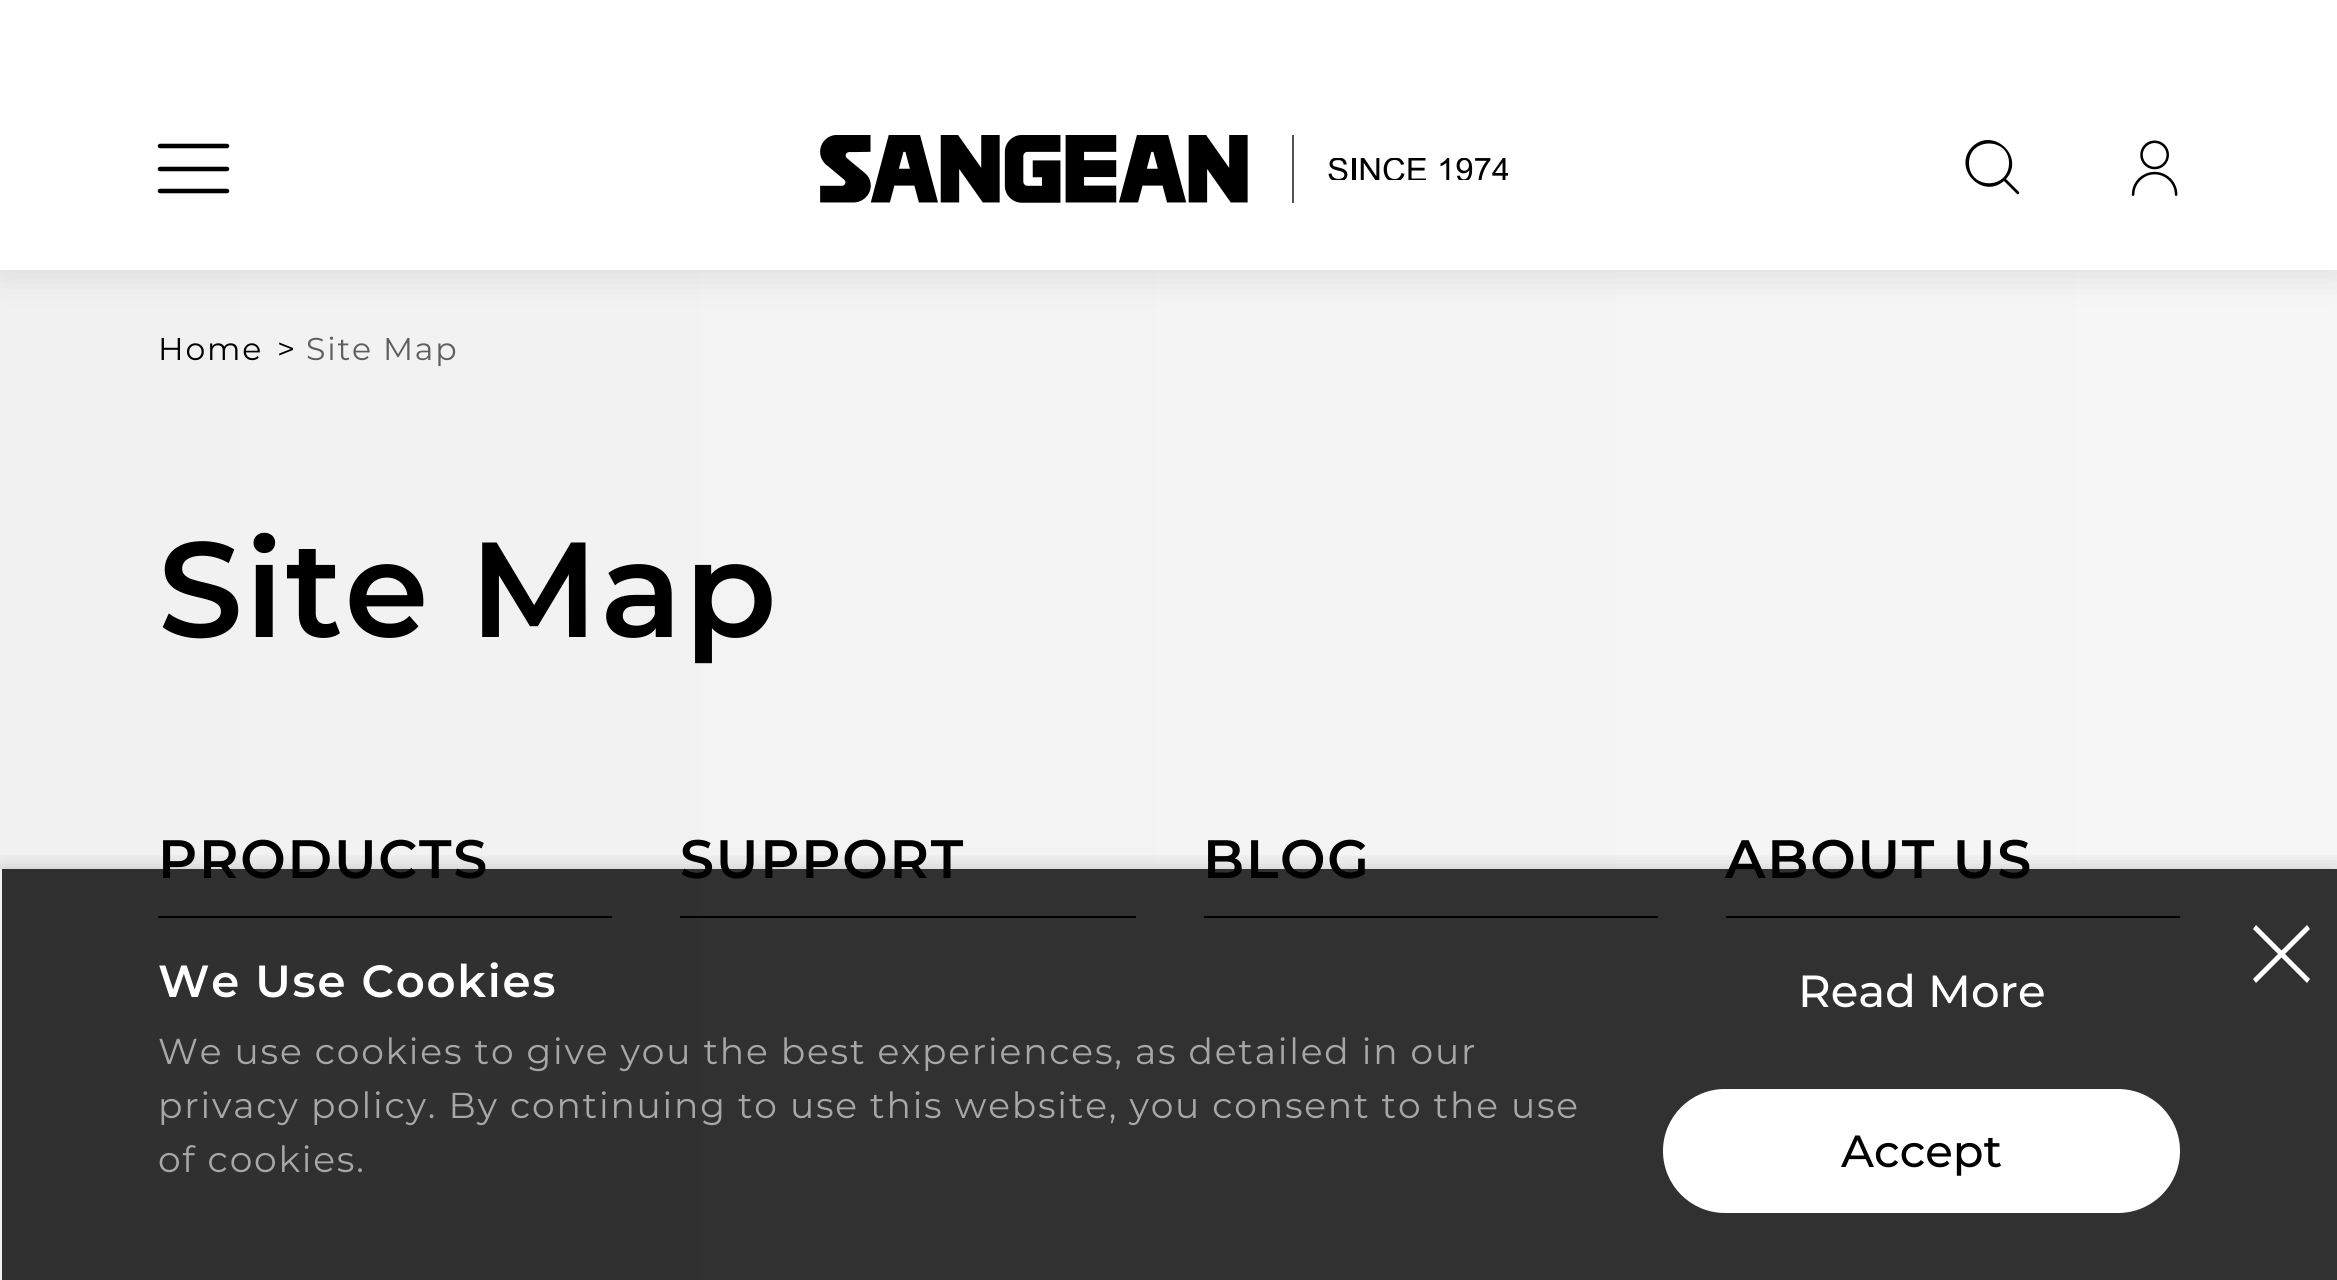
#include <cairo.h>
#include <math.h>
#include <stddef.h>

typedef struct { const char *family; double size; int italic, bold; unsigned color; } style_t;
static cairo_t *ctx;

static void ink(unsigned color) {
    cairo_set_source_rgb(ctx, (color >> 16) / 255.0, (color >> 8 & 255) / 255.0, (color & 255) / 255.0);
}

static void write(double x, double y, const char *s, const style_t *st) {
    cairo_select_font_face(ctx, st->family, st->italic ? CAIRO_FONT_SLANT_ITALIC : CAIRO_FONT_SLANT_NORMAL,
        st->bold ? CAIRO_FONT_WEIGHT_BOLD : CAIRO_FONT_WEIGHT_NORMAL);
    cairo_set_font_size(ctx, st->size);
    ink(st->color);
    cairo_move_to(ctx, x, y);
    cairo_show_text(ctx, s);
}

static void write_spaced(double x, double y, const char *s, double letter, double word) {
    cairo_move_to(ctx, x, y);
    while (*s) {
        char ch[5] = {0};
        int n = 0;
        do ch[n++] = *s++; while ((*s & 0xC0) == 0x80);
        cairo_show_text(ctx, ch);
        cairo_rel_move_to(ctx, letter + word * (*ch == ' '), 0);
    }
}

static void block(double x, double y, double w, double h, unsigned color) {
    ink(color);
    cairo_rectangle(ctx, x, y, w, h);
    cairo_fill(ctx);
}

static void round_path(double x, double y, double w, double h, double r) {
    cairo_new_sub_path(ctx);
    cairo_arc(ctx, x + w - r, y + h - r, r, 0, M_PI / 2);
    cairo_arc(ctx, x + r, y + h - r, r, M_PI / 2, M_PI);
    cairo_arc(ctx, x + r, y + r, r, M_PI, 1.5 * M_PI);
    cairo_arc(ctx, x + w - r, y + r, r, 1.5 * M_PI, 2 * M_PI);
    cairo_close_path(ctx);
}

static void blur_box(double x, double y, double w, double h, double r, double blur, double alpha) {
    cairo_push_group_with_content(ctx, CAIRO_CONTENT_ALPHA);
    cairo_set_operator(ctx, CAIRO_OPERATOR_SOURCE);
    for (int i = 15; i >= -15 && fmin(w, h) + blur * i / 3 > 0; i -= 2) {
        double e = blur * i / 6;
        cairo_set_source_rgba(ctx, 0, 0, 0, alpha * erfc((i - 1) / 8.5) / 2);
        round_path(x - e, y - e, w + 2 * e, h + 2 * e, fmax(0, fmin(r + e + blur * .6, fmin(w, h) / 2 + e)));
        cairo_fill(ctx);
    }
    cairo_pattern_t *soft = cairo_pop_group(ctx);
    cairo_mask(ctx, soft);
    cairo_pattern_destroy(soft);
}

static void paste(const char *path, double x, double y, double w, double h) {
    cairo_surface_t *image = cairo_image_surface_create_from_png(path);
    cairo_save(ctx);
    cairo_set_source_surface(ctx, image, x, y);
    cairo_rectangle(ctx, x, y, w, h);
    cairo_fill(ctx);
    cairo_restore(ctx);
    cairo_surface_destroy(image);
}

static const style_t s1 = {"Montserrat Medium", 45, 0, 0, 0xffffff};
static const style_t s2 = {"Montserrat Medium", 45, 0, 0, 0x000000};

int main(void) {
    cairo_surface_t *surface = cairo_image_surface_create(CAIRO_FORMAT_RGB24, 2337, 1280);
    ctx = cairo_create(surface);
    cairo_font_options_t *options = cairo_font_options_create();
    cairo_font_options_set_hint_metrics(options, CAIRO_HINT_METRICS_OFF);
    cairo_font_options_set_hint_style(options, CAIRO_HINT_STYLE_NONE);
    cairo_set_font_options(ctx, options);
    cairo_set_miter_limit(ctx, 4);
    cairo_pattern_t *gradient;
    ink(0xffffff);
    cairo_paint(ctx);
    gradient = cairo_pattern_create_linear(0, 1050, 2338, 1050);
    cairo_pattern_add_color_stop_rgba(gradient, 0, 0.945, 0.945, 0.945, 1);
    cairo_pattern_add_color_stop_rgba(gradient, 1, 0.965, 0.965, 0.965, 1);
    cairo_set_source(ctx, gradient);
    cairo_pattern_destroy(gradient);
    cairo_rectangle(ctx, 0, 270, 2337, 1010);
    cairo_fill(ctx);
    ink(0x000000);
    blur_box(0, 5, 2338, 270, 0, 17, 0.1);
    block(0, 0, 2337, 270, 0xffffff);
    cairo_new_path(ctx);
    cairo_move_to(ctx, 227, 191);
    cairo_line_to(ctx, 160, 191);
    ink(0x000000);
    cairo_set_line_width(ctx, 4.5);
    cairo_set_line_cap(ctx, CAIRO_LINE_CAP_ROUND);
    cairo_set_line_join(ctx, CAIRO_LINE_JOIN_ROUND);
    cairo_stroke(ctx);
    cairo_new_path(ctx);
    cairo_move_to(ctx, 227, 169);
    cairo_line_to(ctx, 160, 169);
    cairo_stroke(ctx);
    cairo_new_path(ctx);
    cairo_move_to(ctx, 227, 146);
    cairo_line_to(ctx, 160, 146);
    cairo_stroke(ctx);
    paste("pic1.png", 820, 135, 428, 68);
    block(1292, 135, 2, 68, 0x535353);
    paste("pic2.png", 1328, 158, 180, 22);
    ink(0x000000);
    cairo_new_path(ctx);
    cairo_move_to(ctx, 2019, 192);
    cairo_line_to(ctx, 2006, 179);
    cairo_curve_to(ctx, 2026, 157, 1993, 126, 1972, 147);
    cairo_curve_to(ctx, 1952, 168, 1982, 200, 2004, 181);
    cairo_line_to(ctx, 2017, 194);
    cairo_curve_to(ctx, 2018, 195, 2020, 193, 2019, 192);
    cairo_close_path(ctx);
    cairo_move_to(ctx, 1969, 163);
    cairo_curve_to(ctx, 1969, 137, 2009, 137, 2009, 163);
    cairo_curve_to(ctx, 2009, 190, 1969, 190, 1969, 163);
    cairo_close_path(ctx);
    cairo_fill(ctx);
    paste("pic3.png", 2131, 140, 47, 56);
    cairo_select_font_face(ctx, "Montserrat", CAIRO_FONT_SLANT_NORMAL, CAIRO_FONT_WEIGHT_NORMAL);
    cairo_set_font_size(ctx, 31.5);
    write_spaced(158, 360, "Home", 1.8, 0);
    write_spaced(277, 360, ">", 1.8, 0);
    ink(0x5e5e5e);
    write_spaced(306, 360, "Site Map", 1.8, 0);
    cairo_select_font_face(ctx, "Montserrat SemiBold", CAIRO_FONT_SLANT_NORMAL, CAIRO_FONT_WEIGHT_NORMAL);
    cairo_set_font_size(ctx, 135);
    ink(0x000000);
    write_spaced(158, 637, "Site Map", 1.8, 0);
    block(158, 916, 454, 2, 0x000000);
    cairo_set_font_size(ctx, 54);
    write_spaced(158, 878, "PRODUCTS", 1.8, 0);
    block(680, 916, 456, 2, 0x000000);
    write_spaced(680, 878, "SUPPORT", 1.8, 0);
    block(1204, 916, 454, 2, 0x000000);
    write_spaced(1203, 878, "BLOG", 1.8, 0);
    block(1726, 916, 454, 2, 0x000000);
    write_spaced(1725, 878, "ABOUT US", 1.8, 0);
    cairo_save(ctx);
    cairo_rectangle(ctx, 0, 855, 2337, 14);
    cairo_clip(ctx);
    ink(0x000000);
    blur_box(0, 869, 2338, 411, 0, 11, 0.2);
    cairo_restore(ctx);
    cairo_set_source_rgba(ctx, 0, 0, 0, 0.8);
    cairo_rectangle(ctx, 2, 869, 2335, 411);
    cairo_fill(ctx);
    ink(0xffffff);
    cairo_new_path(ctx);
    cairo_move_to(ctx, 2256, 925);
    cairo_line_to(ctx, 2310, 979);
    cairo_line_to(ctx, 2307, 983);
    cairo_line_to(ctx, 2253, 929);
    cairo_close_path(ctx);
    cairo_fill(ctx);
    cairo_new_path(ctx);
    cairo_move_to(ctx, 2310, 929);
    cairo_line_to(ctx, 2256, 983);
    cairo_line_to(ctx, 2253, 979);
    cairo_line_to(ctx, 2307, 925);
    cairo_close_path(ctx);
    cairo_fill(ctx);
    cairo_set_font_size(ctx, 45);
    write_spaced(158, 997, "We Use Cookies", 1.8, 0);
    cairo_select_font_face(ctx, "Montserrat", CAIRO_FONT_SLANT_NORMAL, CAIRO_FONT_WEIGHT_NORMAL);
    cairo_set_font_size(ctx, 36);
    ink(0xa8a7a6);
    write_spaced(158, 1064, "We use cookies to give you the best experiences, as detailed in our", 1.8, 0);
    write_spaced(158, 1118, "privacy policy. By continuing to use this website, you consent to the use", 1.8, 0);
    write_spaced(158, 1172, "of cookies.", 1.8, 0);
    write(1798, 1007, "Read More", &s1);
    round_path(1663, 1089, 517, 124, 62);
    cairo_fill(ctx);
    write(1841, 1167, "Accept", &s2);
    cairo_surface_write_to_png(surface, "screenshot.png");
    cairo_font_options_destroy(options);
    cairo_destroy(ctx);
    cairo_surface_destroy(surface);
    return 0;
}
